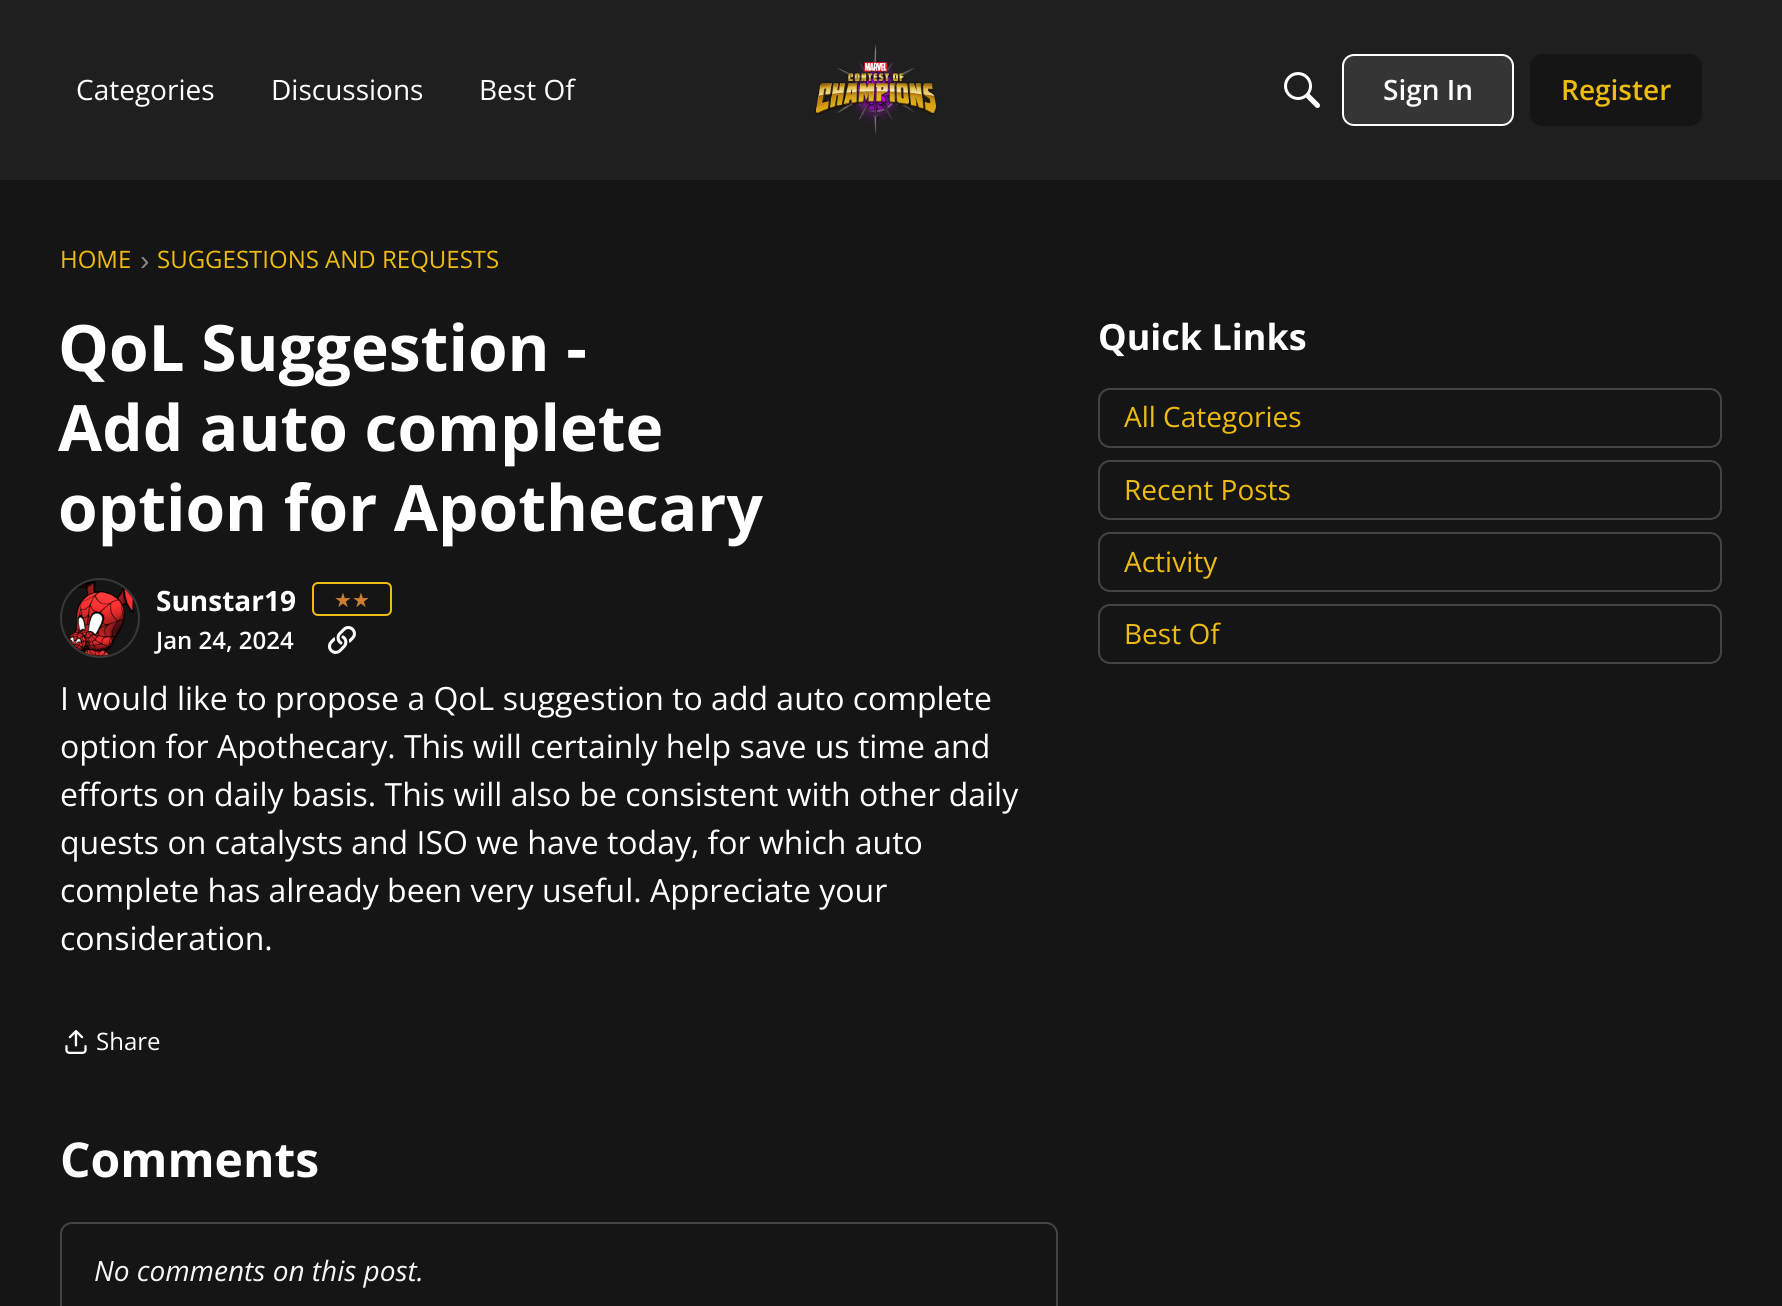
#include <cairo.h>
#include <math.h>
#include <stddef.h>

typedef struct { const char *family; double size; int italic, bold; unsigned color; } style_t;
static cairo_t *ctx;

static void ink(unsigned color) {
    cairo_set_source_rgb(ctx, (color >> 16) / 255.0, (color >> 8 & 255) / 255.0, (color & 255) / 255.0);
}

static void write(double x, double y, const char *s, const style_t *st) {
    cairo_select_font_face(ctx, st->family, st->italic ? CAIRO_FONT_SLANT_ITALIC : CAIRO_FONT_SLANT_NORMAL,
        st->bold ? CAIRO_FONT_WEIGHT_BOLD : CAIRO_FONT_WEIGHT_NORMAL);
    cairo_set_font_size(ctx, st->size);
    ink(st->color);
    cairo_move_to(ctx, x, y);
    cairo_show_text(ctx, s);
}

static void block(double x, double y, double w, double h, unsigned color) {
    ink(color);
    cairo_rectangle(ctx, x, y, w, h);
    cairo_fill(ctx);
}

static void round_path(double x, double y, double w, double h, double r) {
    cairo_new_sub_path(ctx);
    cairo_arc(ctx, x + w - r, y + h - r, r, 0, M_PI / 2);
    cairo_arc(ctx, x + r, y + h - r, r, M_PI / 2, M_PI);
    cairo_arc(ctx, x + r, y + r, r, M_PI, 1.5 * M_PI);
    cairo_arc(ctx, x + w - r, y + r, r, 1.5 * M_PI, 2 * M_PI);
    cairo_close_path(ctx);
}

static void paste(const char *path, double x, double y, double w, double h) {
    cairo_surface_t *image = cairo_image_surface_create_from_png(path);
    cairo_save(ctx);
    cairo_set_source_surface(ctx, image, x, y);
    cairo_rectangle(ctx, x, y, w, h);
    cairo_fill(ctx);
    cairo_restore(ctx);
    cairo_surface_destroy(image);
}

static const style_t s1 = {"Open Sans", 28, 0, 0, 0xffffff};
static const style_t s2 = {"Open Sans SemiBold", 28, 0, 0, 0xffffff};
static const style_t s3 = {"Open Sans SemiBold", 28, 0, 0, 0xeebc11};
static const style_t s4 = {"Open Sans", 24, 0, 0, 0xeebc11};
static const style_t s5 = {"Liberation Sans", 28, 0, 0, 0x8a8a8a};
static const style_t s6 = {"Open Sans", 64, 0, 1, 0xffffff};
static const style_t s7 = {"Open Sans", 28, 0, 1, 0xffffff};
static const style_t s8 = {"DejaVu Sans", 20, 0, 0, 0xcd7f32};
static const style_t s9 = {"Open Sans SemiBold", 24, 0, 0, 0xffffff};
static const style_t s10 = {"Open Sans", 32, 0, 0, 0xffffff};
static const style_t s11 = {"Open Sans", 24, 0, 0, 0xffffff};
static const style_t s12 = {"Open Sans", 48, 0, 1, 0xffffff};
static const style_t s13 = {"Open Sans", 28, 1, 0, 0xf5f6f7};
static const style_t s14 = {"Open Sans", 36, 0, 1, 0xffffff};
static const style_t s15 = {"Open Sans", 28, 0, 0, 0xeebc11};

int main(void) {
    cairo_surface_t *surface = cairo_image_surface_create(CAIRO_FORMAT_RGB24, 1782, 1306);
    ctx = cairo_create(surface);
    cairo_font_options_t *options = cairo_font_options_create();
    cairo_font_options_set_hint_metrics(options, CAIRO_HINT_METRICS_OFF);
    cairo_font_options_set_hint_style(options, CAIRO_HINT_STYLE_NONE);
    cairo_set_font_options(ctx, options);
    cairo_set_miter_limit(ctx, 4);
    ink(0x151515);
    cairo_paint(ctx);
    block(0, 0, 1782, 180, 0x1f1f1f);
    write(76, 100, "Categories", &s1);
    write(271, 100, "Discussions", &s1);
    write(479, 100, "Best Of", &s1);
    paste("pic1.png", 815, 45, 122, 90);
    paste("pic2.png", 1284, 72, 36, 36);
    ink(0x353535);
    round_path(1343, 55, 170, 70, 11);
    cairo_fill_preserve(ctx);
    ink(0xffffff);
    cairo_stroke(ctx);
    write(1383, 100, "Sign In", &s2);
    ink(0x151515);
    round_path(1530, 54, 172, 72, 12);
    cairo_fill(ctx);
    write(1561, 100, "Register", &s3);
    write(60, 268, "HOME", &s4);
    write(140, 270, "›", &s5);
    write(157, 268, "SUGGESTIONS AND REQUESTS", &s4);
    write(58, 371, "QoL Suggestion -", &s6);
    write(58, 451, "Add auto complete", &s6);
    write(58, 531, "option for Apothecary", &s6);
    cairo_new_path(ctx);
    cairo_arc(ctx, 100, 618, 39, 0, 2 * M_PI);
    ink(0x383838);
    cairo_stroke(ctx);
    paste("pic3.png", 68, 581, 66, 75);
    write(156, 611, "Sunstar19", &s7);
    round_path(313, 583, 78, 32, 5);
    ink(0xeebc11);
    cairo_stroke(ctx);
    write(334, 607, "★★", &s8);
    write(156, 649, "Jan 24, 2024", &s9);
    paste("pic4.png", 328, 626, 28, 28);
    write(60, 710, "I would like to propose a QoL suggestion to add auto complete", &s10);
    write(60, 758, "option for Apothecary. This will certainly help save us time and", &s10);
    write(60, 806, "efforts on daily basis. This will also be consistent with other daily", &s10);
    write(60, 854, "quests on catalysts and ISO we have today, for which auto", &s10);
    write(60, 902, "complete has already been very useful. Appreciate your", &s10);
    write(60, 950, "consideration.", &s10);
    paste("pic5.png", 65, 1030, 22, 24);
    write(96, 1050, "Share", &s11);
    write(60, 1177, "Comments", &s12);
    round_path(61, 1223, 996, 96, 11);
    ink(0x444444);
    cairo_stroke(ctx);
    write(94, 1281, "No comments on this post.", &s13);
    write(1098, 350, "Quick Links", &s14);
    round_path(1099, 389, 622, 58, 11);
    ink(0x444444);
    cairo_stroke(ctx);
    write(1124, 427, "All Categories", &s15);
    round_path(1099, 461, 622, 58, 11);
    ink(0x444444);
    cairo_stroke(ctx);
    write(1124, 500, "Recent Posts", &s15);
    round_path(1099, 533, 622, 58, 11);
    ink(0x444444);
    cairo_stroke(ctx);
    write(1124, 572, "Activity", &s15);
    round_path(1099, 605, 622, 58, 11);
    ink(0x444444);
    cairo_stroke(ctx);
    write(1124, 644, "Best Of", &s15);
    cairo_surface_write_to_png(surface, "screenshot.png");
    cairo_font_options_destroy(options);
    cairo_destroy(ctx);
    cairo_surface_destroy(surface);
    return 0;
}
